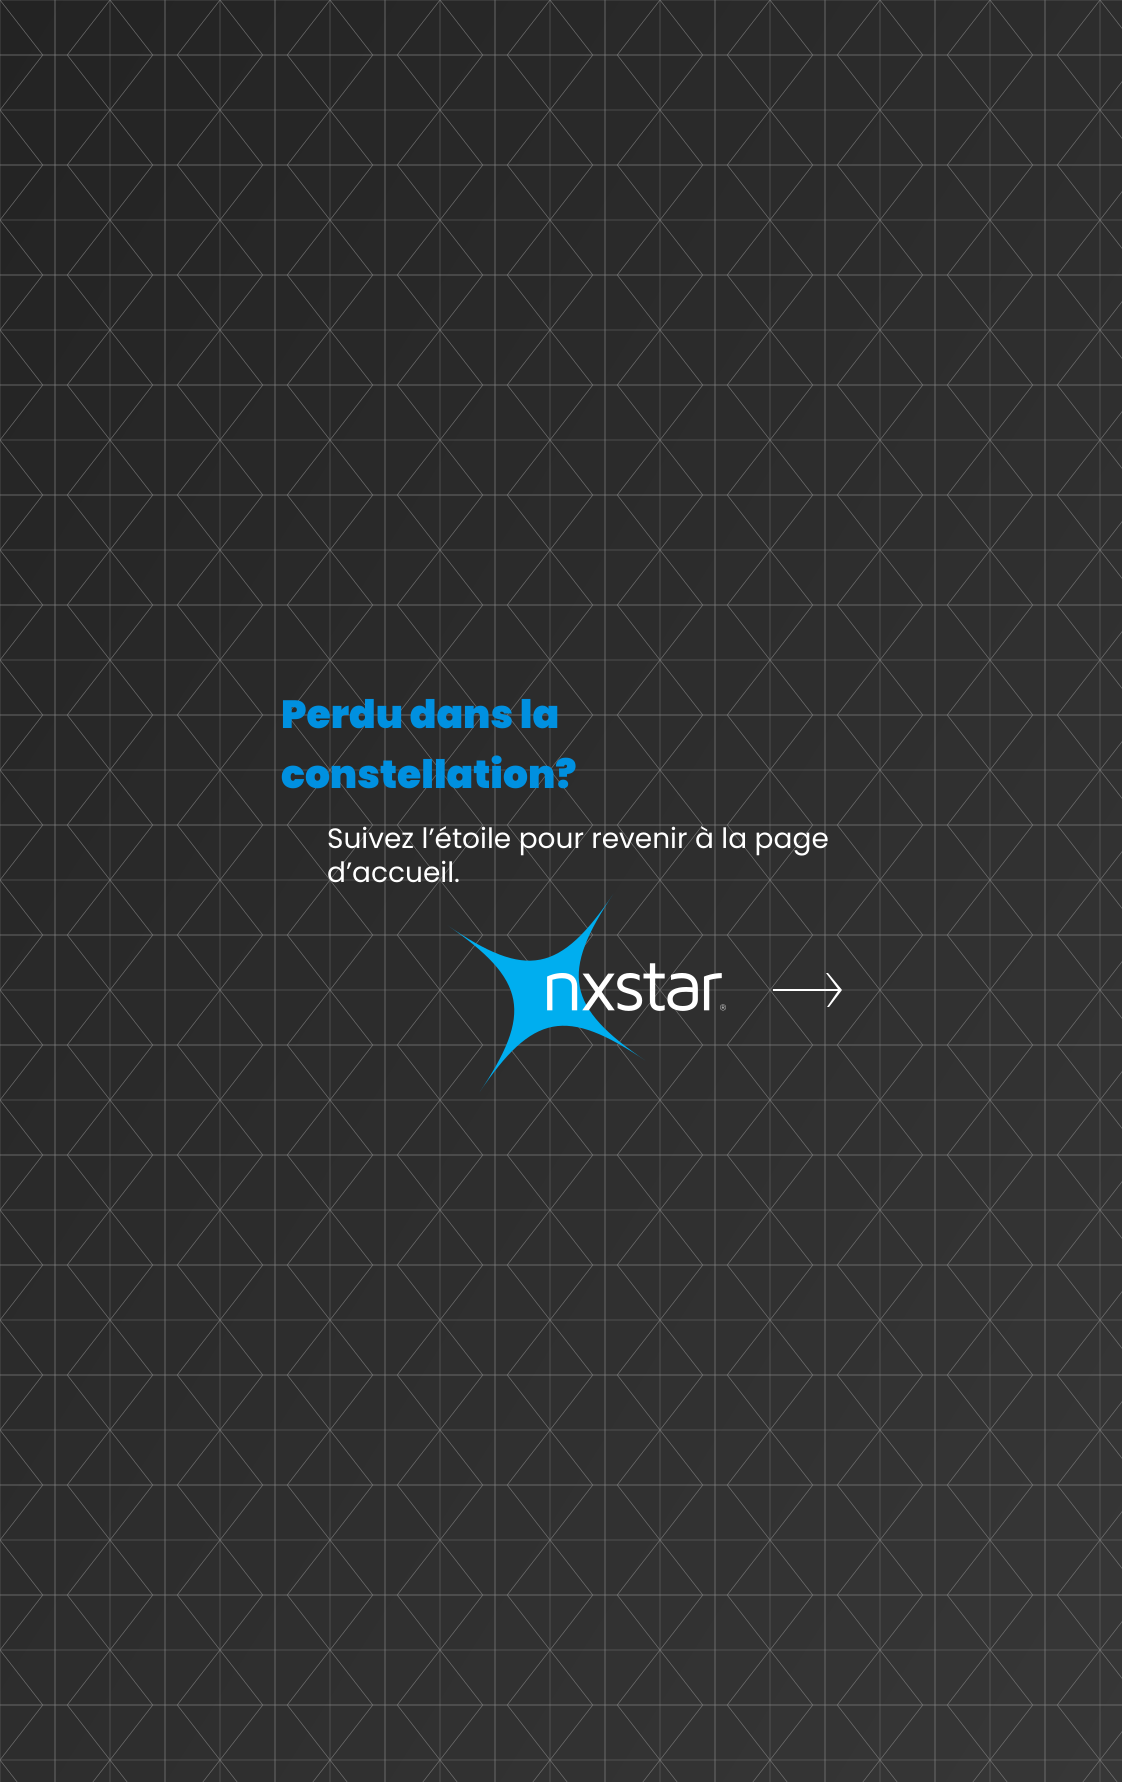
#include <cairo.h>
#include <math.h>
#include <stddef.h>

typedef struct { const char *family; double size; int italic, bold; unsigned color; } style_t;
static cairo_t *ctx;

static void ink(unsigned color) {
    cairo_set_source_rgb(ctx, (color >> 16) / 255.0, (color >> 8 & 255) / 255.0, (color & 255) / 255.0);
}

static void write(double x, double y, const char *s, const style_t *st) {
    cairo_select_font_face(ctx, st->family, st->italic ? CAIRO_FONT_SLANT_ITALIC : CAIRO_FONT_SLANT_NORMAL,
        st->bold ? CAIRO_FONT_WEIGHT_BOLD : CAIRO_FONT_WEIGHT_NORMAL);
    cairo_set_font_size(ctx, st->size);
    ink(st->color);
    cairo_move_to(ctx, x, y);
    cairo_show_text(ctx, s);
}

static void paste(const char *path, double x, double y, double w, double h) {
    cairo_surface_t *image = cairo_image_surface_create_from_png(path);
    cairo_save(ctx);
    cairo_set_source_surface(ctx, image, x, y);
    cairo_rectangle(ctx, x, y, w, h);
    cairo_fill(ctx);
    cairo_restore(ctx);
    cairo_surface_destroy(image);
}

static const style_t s1 = {"Poppins Black", 39.25, 0, 0, 0x0090e0};
static const style_t s2 = {"Poppins", 28, 0, 0, 0xffffff};

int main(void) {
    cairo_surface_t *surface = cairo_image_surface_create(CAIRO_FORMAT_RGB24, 1122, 1782);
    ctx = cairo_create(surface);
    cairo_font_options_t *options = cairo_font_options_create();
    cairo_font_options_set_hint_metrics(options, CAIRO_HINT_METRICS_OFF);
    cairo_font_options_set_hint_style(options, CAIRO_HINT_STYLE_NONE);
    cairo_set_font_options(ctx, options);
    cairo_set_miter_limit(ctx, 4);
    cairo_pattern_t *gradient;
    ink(0xffffff);
    cairo_paint(ctx);
    gradient = cairo_pattern_create_linear(-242, 385, 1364, 1397);
    cairo_pattern_add_color_stop_rgba(gradient, 0, 0.137, 0.137, 0.137, 1);
    cairo_pattern_add_color_stop_rgba(gradient, 1, 0.216, 0.216, 0.216, 1);
    cairo_set_source(ctx, gradient);
    cairo_pattern_destroy(gradient);
    cairo_rectangle(ctx, 0, 0, 1122, 1782);
    cairo_fill(ctx);
    paste("pic1.png", 0, 0, 1122, 1782);
    write(281, 728, "Perdu dans la", &s1);
    write(281, 788, "constellation?", &s1);
    write(327, 848, "Suivez l’étoile pour revenir à la page", &s2);
    write(327, 882, "d’accueil.", &s2);
    ink(0x00aeef);
    cairo_new_path(ctx);
    cairo_move_to(ctx, 447, 925);
    cairo_curve_to(ctx, 527, 980, 533, 1013, 479, 1093);
    cairo_curve_to(ctx, 533, 1013, 566, 1007, 646, 1061);
    cairo_curve_to(ctx, 566, 1007, 560, 973, 614, 893);
    cairo_curve_to(ctx, 560, 973, 527, 980, 447, 925);
    cairo_fill(ctx);
    paste("pic2.png", 547, 963, 179, 48);
    ink(0xffffff);
    cairo_new_path(ctx);
    cairo_move_to(ctx, 773, 991);
    cairo_line_to(ctx, 773, 989);
    cairo_line_to(ctx, 838, 989);
    cairo_line_to(ctx, 826, 973);
    cairo_line_to(ctx, 828, 973);
    cairo_line_to(ctx, 842, 990);
    cairo_line_to(ctx, 829, 1007);
    cairo_line_to(ctx, 827, 1007);
    cairo_line_to(ctx, 838, 991);
    cairo_close_path(ctx);
    cairo_fill(ctx);
    cairo_surface_write_to_png(surface, "screenshot.png");
    cairo_font_options_destroy(options);
    cairo_destroy(ctx);
    cairo_surface_destroy(surface);
    return 0;
}
